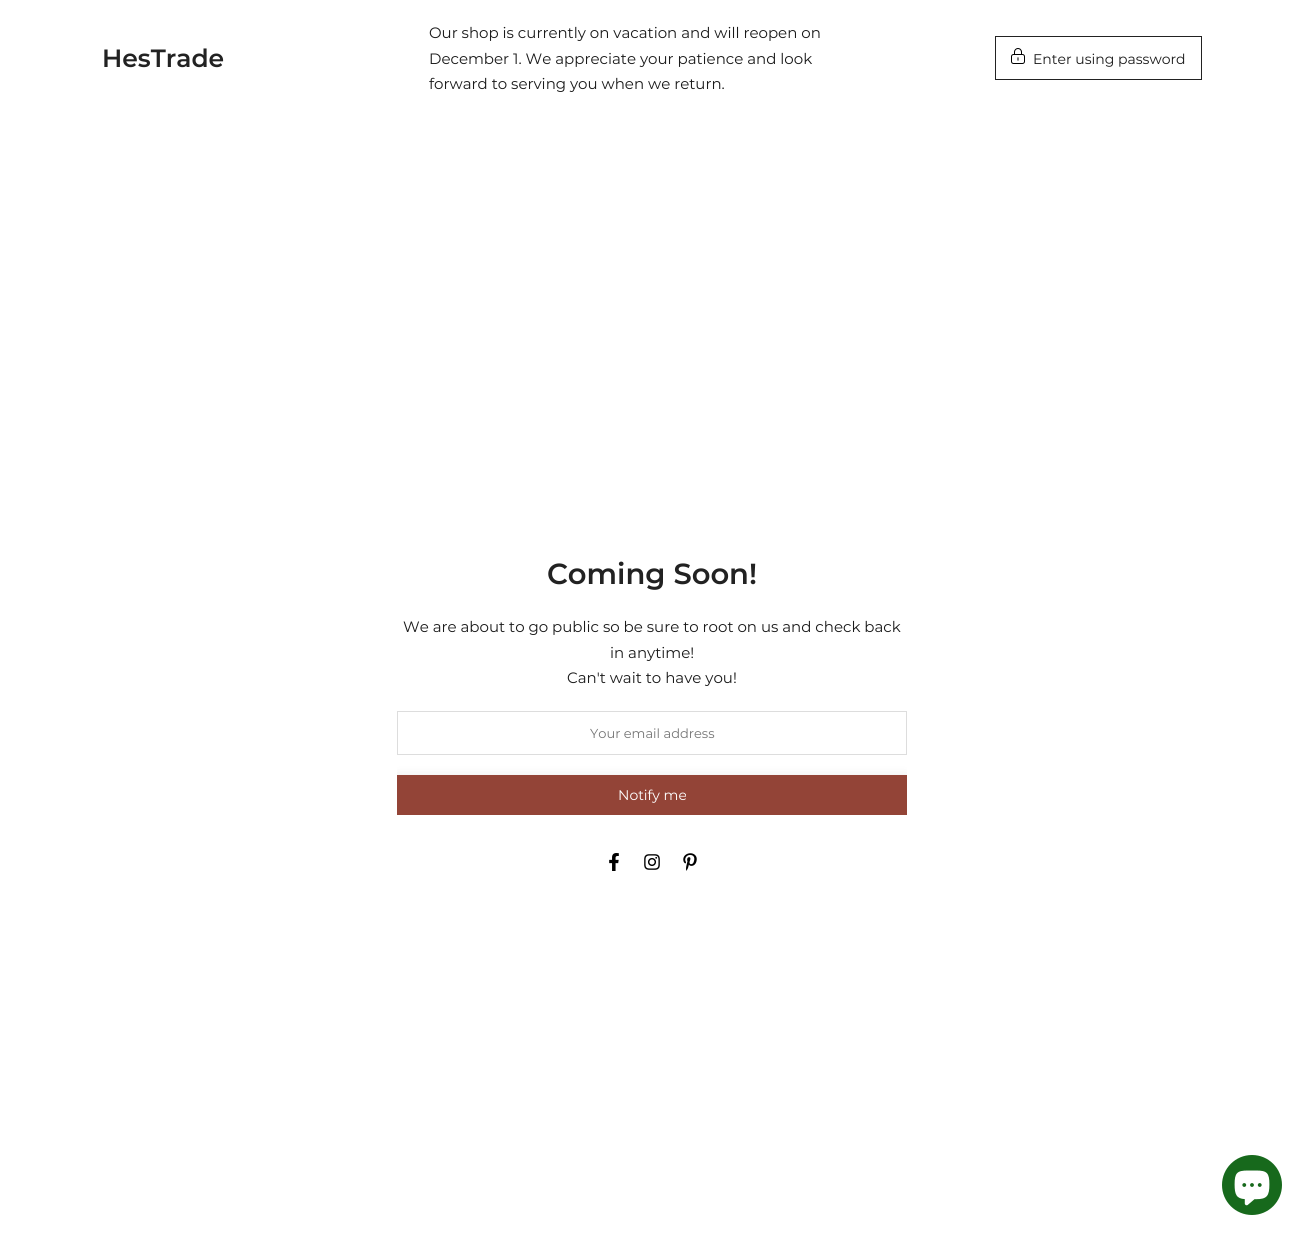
#include <cairo.h>
#include <math.h>
#include <stddef.h>

typedef struct { const char *family; double size; int italic, bold; unsigned color; } style_t;
static cairo_t *ctx;

static void ink(unsigned color) {
    cairo_set_source_rgb(ctx, (color >> 16) / 255.0, (color >> 8 & 255) / 255.0, (color & 255) / 255.0);
}

static void write(double x, double y, const char *s, const style_t *st) {
    cairo_select_font_face(ctx, st->family, st->italic ? CAIRO_FONT_SLANT_ITALIC : CAIRO_FONT_SLANT_NORMAL,
        st->bold ? CAIRO_FONT_WEIGHT_BOLD : CAIRO_FONT_WEIGHT_NORMAL);
    cairo_set_font_size(ctx, st->size);
    ink(st->color);
    cairo_move_to(ctx, x, y);
    cairo_show_text(ctx, s);
}

static void block(double x, double y, double w, double h, unsigned color) {
    ink(color);
    cairo_rectangle(ctx, x, y, w, h);
    cairo_fill(ctx);
}

static void round_path(double x, double y, double w, double h, double r) {
    cairo_new_sub_path(ctx);
    cairo_arc(ctx, x + w - r, y + h - r, r, 0, M_PI / 2);
    cairo_arc(ctx, x + r, y + h - r, r, M_PI / 2, M_PI);
    cairo_arc(ctx, x + r, y + r, r, M_PI, 1.5 * M_PI);
    cairo_arc(ctx, x + w - r, y + r, r, 1.5 * M_PI, 2 * M_PI);
    cairo_close_path(ctx);
}

static void blur_box(double x, double y, double w, double h, double r, double blur, double alpha) {
    cairo_push_group_with_content(ctx, CAIRO_CONTENT_ALPHA);
    cairo_set_operator(ctx, CAIRO_OPERATOR_SOURCE);
    for (int i = 15; i >= -15 && fmin(w, h) + blur * i / 3 > 0; i -= 2) {
        double e = blur * i / 6;
        cairo_set_source_rgba(ctx, 0, 0, 0, alpha * erfc((i - 1) / 8.5) / 2);
        round_path(x - e, y - e, w + 2 * e, h + 2 * e, fmax(0, fmin(r + e + blur * .6, fmin(w, h) / 2 + e)));
        cairo_fill(ctx);
    }
    cairo_pattern_t *soft = cairo_pop_group(ctx);
    cairo_mask(ctx, soft);
    cairo_pattern_destroy(soft);
}

static void paste(const char *path, double x, double y, double w, double h) {
    cairo_surface_t *image = cairo_image_surface_create_from_png(path);
    cairo_save(ctx);
    cairo_set_source_surface(ctx, image, x, y);
    cairo_rectangle(ctx, x, y, w, h);
    cairo_fill(ctx);
    cairo_restore(ctx);
    cairo_surface_destroy(image);
}

static const style_t s1 = {"Montserrat SemiBold", 25, 0, 0, 0x222222};
static const style_t s2 = {"Montserrat", 15, 0, 0, 0x1a1a1a};
static const style_t s3 = {"Montserrat", 14, 0, 0, 0x1a1a1a};
static const style_t s4 = {"Montserrat SemiBold", 29, 0, 0, 0x222222};
static const style_t s5 = {"Montserrat", 13, 0, 0, 0x757575};
static const style_t s6 = {"Montserrat", 14, 0, 0, 0xffffff};

int main(void) {
    cairo_surface_t *surface = cairo_image_surface_create(CAIRO_FORMAT_RGB24, 1304, 1236);
    ctx = cairo_create(surface);
    cairo_font_options_t *options = cairo_font_options_create();
    cairo_font_options_set_hint_metrics(options, CAIRO_HINT_METRICS_OFF);
    cairo_font_options_set_hint_style(options, CAIRO_HINT_STYLE_NONE);
    cairo_set_font_options(ctx, options);
    cairo_set_miter_limit(ctx, 4);
    ink(0xffffff);
    cairo_paint(ctx);
    write(102, 67, "HesTrade", &s1);
    write(429, 38, "Our shop is currently on vacation and will reopen on", &s2);
    write(429, 64, "December 1. We appreciate your patience and look", &s2);
    write(429, 89, "forward to serving you when we return.", &s2);
    cairo_rectangle(ctx, 995.5, 36.5, 206, 43);
    ink(0x222222);
    cairo_set_line_width(ctx, 1);
    cairo_stroke(ctx);
    paste("pic1.png", 1011, 48, 14, 16);
    write(1033, 64, "Enter using password", &s3);
    write(547, 584, "Coming Soon!", &s4);
    write(403, 632, "We are about to go public so be sure to root on us and check back", &s2);
    write(610, 658, "in anytime!", &s2);
    write(567, 683, "Can't wait to have you!", &s2);
    cairo_rectangle(ctx, 397.5, 711.5, 509, 43);
    ink(0xdddddd);
    cairo_stroke(ctx);
    write(590, 738, "Your email address", &s5);
    cairo_save(ctx);
    cairo_rectangle(ctx, 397, 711, 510, 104);
    cairo_clip(ctx);
    ink(0x000000);
    blur_box(397, 780, 510, 40, 0, 7.5, 0.15);
    cairo_restore(ctx);
    block(397, 775, 510, 40, 0x934437);
    write(618, 800, "Notify me", &s6);
    paste("pic2.png", 609, 853, 10, 18);
    paste("pic3.png", 644, 854, 16, 16);
    paste("pic4.png", 683, 853, 14, 18);
    ink(0x17691c);
    cairo_arc(ctx, 1252, 1185, 30, 0, 2 * M_PI);
    cairo_fill(ctx);
    paste("pic5.png", 1234, 1170, 36, 36);
    cairo_surface_write_to_png(surface, "screenshot.png");
    cairo_font_options_destroy(options);
    cairo_destroy(ctx);
    cairo_surface_destroy(surface);
    return 0;
}
